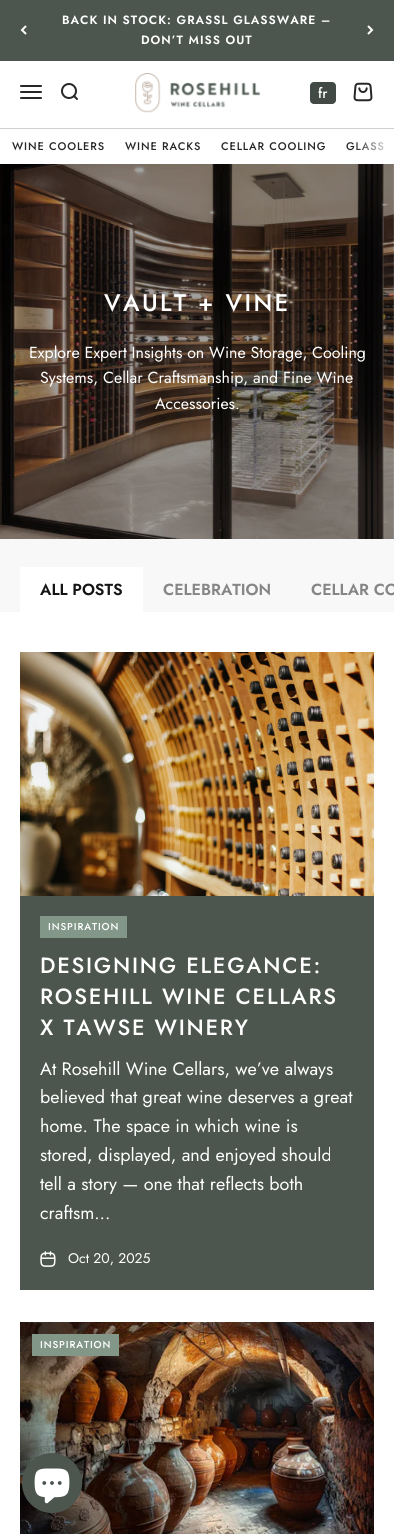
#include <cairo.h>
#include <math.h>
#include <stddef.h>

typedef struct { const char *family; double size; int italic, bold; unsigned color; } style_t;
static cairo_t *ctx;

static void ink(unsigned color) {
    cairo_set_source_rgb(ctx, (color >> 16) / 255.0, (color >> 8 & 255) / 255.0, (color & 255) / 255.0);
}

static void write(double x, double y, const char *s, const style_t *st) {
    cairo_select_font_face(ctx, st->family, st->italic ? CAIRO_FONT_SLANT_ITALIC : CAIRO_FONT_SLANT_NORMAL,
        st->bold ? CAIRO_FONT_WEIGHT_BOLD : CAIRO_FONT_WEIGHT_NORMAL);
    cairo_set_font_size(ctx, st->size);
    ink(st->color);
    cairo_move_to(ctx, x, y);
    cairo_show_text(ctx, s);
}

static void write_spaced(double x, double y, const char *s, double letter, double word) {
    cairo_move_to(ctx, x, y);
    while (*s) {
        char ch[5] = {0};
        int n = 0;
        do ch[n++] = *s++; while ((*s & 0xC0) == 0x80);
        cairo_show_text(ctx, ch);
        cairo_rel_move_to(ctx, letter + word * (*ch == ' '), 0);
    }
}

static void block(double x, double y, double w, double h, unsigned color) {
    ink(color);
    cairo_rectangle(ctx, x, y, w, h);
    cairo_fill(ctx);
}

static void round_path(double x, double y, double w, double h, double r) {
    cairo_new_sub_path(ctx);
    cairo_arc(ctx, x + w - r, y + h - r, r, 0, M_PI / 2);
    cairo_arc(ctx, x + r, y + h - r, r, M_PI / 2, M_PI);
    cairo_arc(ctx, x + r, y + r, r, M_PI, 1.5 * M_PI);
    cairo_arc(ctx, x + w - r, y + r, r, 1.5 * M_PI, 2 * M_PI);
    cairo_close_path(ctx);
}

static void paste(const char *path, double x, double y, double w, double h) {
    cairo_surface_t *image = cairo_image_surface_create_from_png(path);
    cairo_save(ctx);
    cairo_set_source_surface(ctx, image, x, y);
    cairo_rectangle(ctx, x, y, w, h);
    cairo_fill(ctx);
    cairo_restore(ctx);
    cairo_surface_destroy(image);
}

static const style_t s1 = {"Jost Medium", 14, 0, 0, 0xffffff};
static const style_t s2 = {"Jost", 16, 0, 0, 0xffffff};
static const style_t s3 = {"Jost SemiBold", 16, 0, 0, 0x141414};
static const style_t s4 = {"Jost SemiBold", 16, 0, 0, 0x868686};
static const style_t s5 = {"Jost", 18, 0, 0, 0xffffff};
static const style_t s6 = {"Jost", 14, 0, 0, 0xffffff};

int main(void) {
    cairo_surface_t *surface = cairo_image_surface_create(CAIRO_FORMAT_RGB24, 394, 1534);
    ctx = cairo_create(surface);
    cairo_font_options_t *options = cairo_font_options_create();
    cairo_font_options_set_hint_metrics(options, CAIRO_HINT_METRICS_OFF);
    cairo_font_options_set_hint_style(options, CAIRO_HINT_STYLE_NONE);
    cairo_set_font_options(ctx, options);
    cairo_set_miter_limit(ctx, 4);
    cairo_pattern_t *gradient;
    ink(0xffffff);
    cairo_paint(ctx);
    block(0, 0, 394, 61, 0x4c564e);
    cairo_new_path(ctx);
    cairo_move_to(ctx, 26, 26);
    cairo_line_to(ctx, 22, 30);
    cairo_line_to(ctx, 26, 34);
    ink(0xffffff);
    cairo_stroke(ctx);
    cairo_select_font_face(ctx, "Jost SemiBold", CAIRO_FONT_SLANT_NORMAL, CAIRO_FONT_WEIGHT_NORMAL);
    cairo_set_font_size(ctx, 12);
    write_spaced(62, 24, "BACK IN STOCK: GRASSL GLASSWARE –", 1, 0);
    write_spaced(141, 44, "DON’T MISS OUT", 1, 0);
    cairo_new_path(ctx);
    cairo_move_to(ctx, 368, 34);
    cairo_line_to(ctx, 372, 30);
    cairo_line_to(ctx, 368, 26);
    cairo_stroke(ctx);
    paste("pic1.png", 20, 85, 22, 14);
    paste("pic2.png", 61, 83, 17, 17);
    paste("pic3.png", 135, 73, 125, 40);
    ink(0x414a44);
    round_path(310, 82, 26, 22, 4);
    cairo_fill(ctx);
    write(318, 98, "fr", &s1);
    paste("pic4.png", 353, 82, 20, 20);
    block(0, 128, 394, 1, 0xd0d0d0);
    cairo_set_font_size(ctx, 11);
    ink(0x272727);
    write_spaced(12, 150, "WINE COOLERS", 0.9, 0);
    write_spaced(125, 150, "WINE RACKS", 0.9, 0);
    write_spaced(221, 150, "CELLAR COOLING", 0.9, 0);
    write_spaced(346, 150, "GLASS", 0.9, 0);
    gradient = cairo_pattern_create_linear(394, 147, 354, 147);
    cairo_pattern_add_color_stop_rgba(gradient, 0, 1, 1, 1, 1);
    cairo_pattern_add_color_stop_rgba(gradient, 1, 1, 1, 1, 0);
    cairo_set_source(ctx, gradient);
    cairo_pattern_destroy(gradient);
    cairo_rectangle(ctx, 356, 142, 28, 9);
    cairo_fill(ctx);
    paste("pic5.png", 0, 164, 394, 375);
    cairo_set_font_size(ctx, 24);
    ink(0xffffff);
    write_spaced(104, 311, "VAULT + VINE", 2.4, 0);
    write(29, 358, "Explore Expert Insights on Wine Storage, Cooling", &s2);
    write(40, 383, "Systems, Cellar Craftsmanship, and Fine Wine", &s2);
    write(155, 409, "Accessories.", &s2);
    block(0, 539, 394, 73, 0xf8f8f8);
    block(20, 567, 123, 45, 0xffffff);
    write(40, 595, "ALL POSTS", &s3);
    write(163, 595, "CELEBRATION", &s4);
    write(311, 595, "CELLAR CO", &s4);
    block(20, 896, 354, 394, 0x4c564e);
    paste("pic6.png", 20, 652, 354, 244);
    block(40, 916, 87, 22, 0x839788);
    cairo_select_font_face(ctx, "Jost Medium", CAIRO_FONT_SLANT_NORMAL, CAIRO_FONT_WEIGHT_NORMAL);
    cairo_set_font_size(ctx, 10);
    ink(0xffffff);
    write_spaced(48, 930, "INSPIRATION", 0.9, 0);
    cairo_set_font_size(ctx, 22);
    write_spaced(40, 973, "DESIGNING ELEGANCE:", 1.75, 0);
    write_spaced(40, 1004, "ROSEHILL WINE CELLARS", 1.75, 0);
    write_spaced(40, 1035, "X TAWSE WINERY", 1.75, 0);
    write(40, 1075, "At Rosehill Wine Cellars, we’ve always", &s5);
    write(40, 1103, "believed that great wine deserves a great", &s5);
    write(40, 1132, "home. The space in which wine is", &s5);
    write(40, 1161, "stored, displayed, and enjoyed should", &s5);
    write(40, 1190, "tell a story — one that reflects both", &s5);
    write(40, 1219, "craftsm...", &s5);
    paste("pic7.png", 40, 1251, 16, 16);
    write(68, 1263, "Oct 20, 2025", &s6);
    paste("pic8.png", 20, 1322, 354, 212);
    block(32, 1334, 87, 22, 0x839788);
    cairo_select_font_face(ctx, "Jost Medium", CAIRO_FONT_SLANT_NORMAL, CAIRO_FONT_WEIGHT_NORMAL);
    cairo_set_font_size(ctx, 10);
    ink(0xffffff);
    write_spaced(40, 1348, "INSPIRATION", 0.9, 0);
    ink(0x4c564e);
    cairo_new_path(ctx);
    cairo_arc(ctx, 52, 1483, 30, 0, 2 * M_PI);
    cairo_fill(ctx);
    paste("pic9.png", 34, 1468, 36, 36);
    cairo_surface_write_to_png(surface, "screenshot.png");
    cairo_font_options_destroy(options);
    cairo_destroy(ctx);
    cairo_surface_destroy(surface);
    return 0;
}
